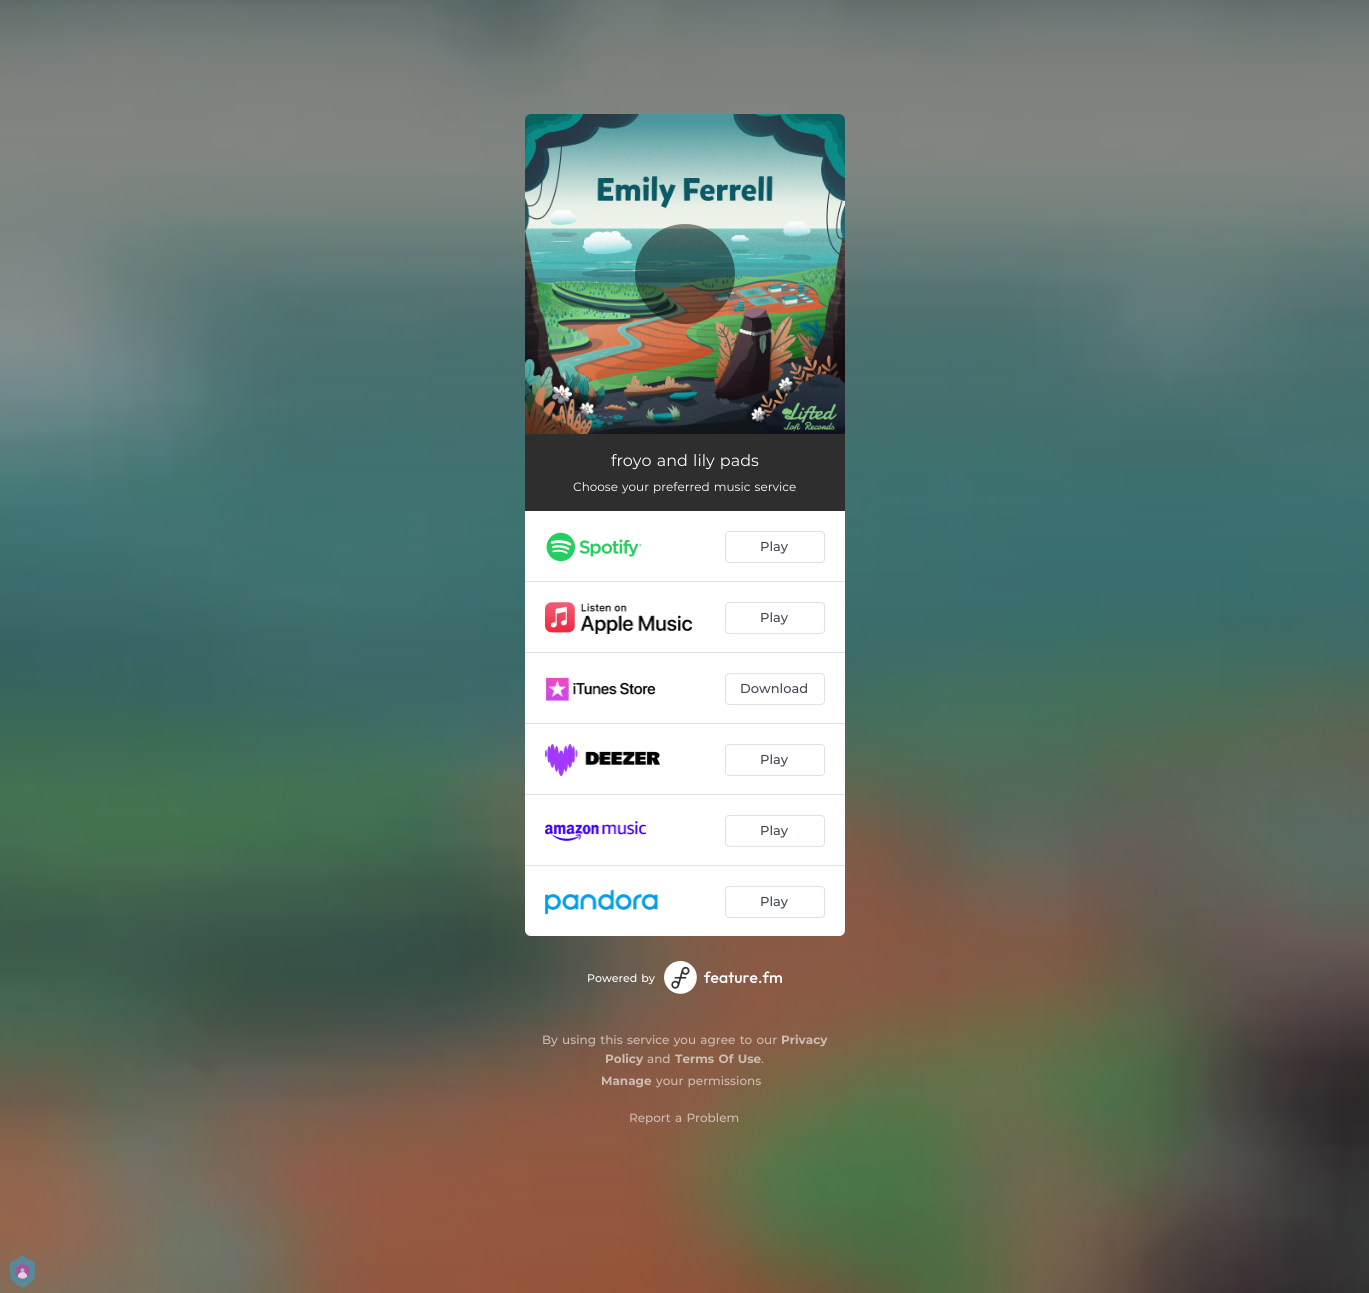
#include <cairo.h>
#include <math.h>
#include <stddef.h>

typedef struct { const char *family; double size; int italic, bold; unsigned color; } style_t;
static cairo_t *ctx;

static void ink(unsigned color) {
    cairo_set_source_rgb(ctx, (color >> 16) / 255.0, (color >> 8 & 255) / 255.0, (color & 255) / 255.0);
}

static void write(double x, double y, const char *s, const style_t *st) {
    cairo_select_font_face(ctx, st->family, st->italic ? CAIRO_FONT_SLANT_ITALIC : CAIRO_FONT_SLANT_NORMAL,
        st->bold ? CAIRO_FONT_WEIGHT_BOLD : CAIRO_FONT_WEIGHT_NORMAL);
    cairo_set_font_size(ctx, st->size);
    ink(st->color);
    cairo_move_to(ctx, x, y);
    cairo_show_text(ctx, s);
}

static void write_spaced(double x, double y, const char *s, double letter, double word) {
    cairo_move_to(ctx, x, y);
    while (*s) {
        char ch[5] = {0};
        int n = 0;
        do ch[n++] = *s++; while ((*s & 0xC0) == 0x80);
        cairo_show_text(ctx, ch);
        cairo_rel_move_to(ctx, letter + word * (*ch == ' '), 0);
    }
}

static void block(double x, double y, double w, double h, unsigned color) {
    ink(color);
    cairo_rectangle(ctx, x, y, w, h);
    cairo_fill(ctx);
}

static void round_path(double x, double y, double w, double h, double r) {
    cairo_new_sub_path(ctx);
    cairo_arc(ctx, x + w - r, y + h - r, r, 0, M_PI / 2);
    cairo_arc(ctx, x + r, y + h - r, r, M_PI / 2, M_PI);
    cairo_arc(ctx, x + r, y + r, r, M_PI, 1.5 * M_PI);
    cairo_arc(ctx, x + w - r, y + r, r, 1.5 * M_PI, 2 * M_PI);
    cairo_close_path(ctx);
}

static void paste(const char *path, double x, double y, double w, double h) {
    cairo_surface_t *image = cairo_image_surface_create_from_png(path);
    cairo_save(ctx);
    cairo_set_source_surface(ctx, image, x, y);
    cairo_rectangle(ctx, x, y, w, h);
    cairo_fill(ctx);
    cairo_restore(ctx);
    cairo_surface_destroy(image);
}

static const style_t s1 = {"Montserrat Medium", 13, 0, 0, 0x414754};
static const style_t s2 = {"Montserrat", 12, 0, 1, 0xccbdb5};
static const style_t s3 = {"Montserrat Medium", 12, 0, 0, 0xccbdb5};

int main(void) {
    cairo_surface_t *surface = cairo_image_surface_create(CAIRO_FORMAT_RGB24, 1369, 1293);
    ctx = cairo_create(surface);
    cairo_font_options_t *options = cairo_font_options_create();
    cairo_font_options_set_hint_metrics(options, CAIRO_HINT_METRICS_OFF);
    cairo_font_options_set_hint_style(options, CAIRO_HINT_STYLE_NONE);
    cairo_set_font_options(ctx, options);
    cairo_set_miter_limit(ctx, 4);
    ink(0xffffff);
    cairo_paint(ctx);
    paste("pic1.png", 0, 0, 1369, 1293);
    paste("pic2.png", 525, 114, 320, 320);
    cairo_set_source_rgba(ctx, 0, 0, 0, 0.45);
    cairo_arc(ctx, 685, 274, 50, 0, 2 * M_PI);
    cairo_fill(ctx);
    block(525, 434, 320, 77, 0x2e2e2e);
    cairo_select_font_face(ctx, "Montserrat", CAIRO_FONT_SLANT_NORMAL, CAIRO_FONT_WEIGHT_NORMAL);
    cairo_set_font_size(ctx, 16);
    ink(0xffffff);
    write_spaced(611, 466, "froyo and lily pads", 0, 1);
    cairo_set_font_size(ctx, 12);
    write_spaced(573, 491, "Choose your preferred music service", 0, 1);
    cairo_new_path(ctx);
    cairo_move_to(ctx, 525, 511);
    cairo_line_to(ctx, 845, 511);
    cairo_line_to(ctx, 845, 930);
    cairo_curve_to(ctx, 845, 933.5, 842.5, 936, 839, 936);
    cairo_line_to(ctx, 531, 936);
    cairo_curve_to(ctx, 527.5, 936, 525, 933.5, 525, 930);
    cairo_close_path(ctx);
    cairo_fill(ctx);
    block(525, 581, 320, 1, 0xe1e1e4);
    paste("pic3.png", 546, 532, 96, 30);
    round_path(725.5, 531.5, 99, 31, 3.5);
    cairo_set_line_width(ctx, 1);
    cairo_stroke(ctx);
    write(760, 551, "Play", &s1);
    block(525, 652, 320, 1, 0xe1e1e4);
    paste("pic4.png", 545, 602, 147, 32);
    round_path(725.5, 602.5, 99, 31, 3.5);
    cairo_stroke(ctx);
    write(760, 622, "Play", &s1);
    block(525, 723, 320, 1, 0xe1e1e4);
    paste("pic5.png", 546, 677, 110, 24);
    round_path(725.5, 673.5, 99, 31, 3.5);
    cairo_stroke(ctx);
    write(740, 693, "Download", &s1);
    block(525, 794, 320, 1, 0xe1e1e4);
    paste("pic6.png", 545, 744, 115, 32);
    round_path(725.5, 744.5, 99, 31, 3.5);
    cairo_stroke(ctx);
    write(760, 764, "Play", &s1);
    block(525, 865, 320, 1, 0xe1e1e4);
    paste("pic7.png", 545, 821, 101, 20);
    round_path(725.5, 815.5, 99, 31, 3.5);
    cairo_stroke(ctx);
    write(760, 835, "Play", &s1);
    paste("pic8.png", 545, 889, 114, 26);
    round_path(725.5, 886.5, 99, 31, 3.5);
    ink(0xe1e1e4);
    cairo_stroke(ctx);
    write(760, 906, "Play", &s1);
    cairo_set_font_size(ctx, 11);
    ink(0xffffff);
    write_spaced(587, 982, "Powered by", 0, 1);
    paste("pic9.png", 664, 961, 118, 33);
    cairo_set_font_size(ctx, 12);
    ink(0xccbdb5);
    write_spaced(542, 1044, "By using this service you agree to our", 0, 1);
    write(781, 1044, "Privacy", &s2);
    write(605, 1063, "Policy", &s2);
    write(647, 1063, "and", &s3);
    cairo_select_font_face(ctx, "Montserrat", CAIRO_FONT_SLANT_NORMAL, CAIRO_FONT_WEIGHT_BOLD);
    write_spaced(675, 1063, "Terms Of Use", 0, 1);
    write(761, 1063, ".", &s3);
    write(601, 1085, "Manage", &s2);
    cairo_select_font_face(ctx, "Montserrat Medium", CAIRO_FONT_SLANT_NORMAL, CAIRO_FONT_WEIGHT_NORMAL);
    write_spaced(656, 1085, "your permissions", 0, 1);
    write_spaced(629, 1122, "Report a Problem", 0, 1);
    paste("pic10.png", 10, 1255, 25, 33);
    cairo_surface_write_to_png(surface, "screenshot.png");
    cairo_font_options_destroy(options);
    cairo_destroy(ctx);
    cairo_surface_destroy(surface);
    return 0;
}
